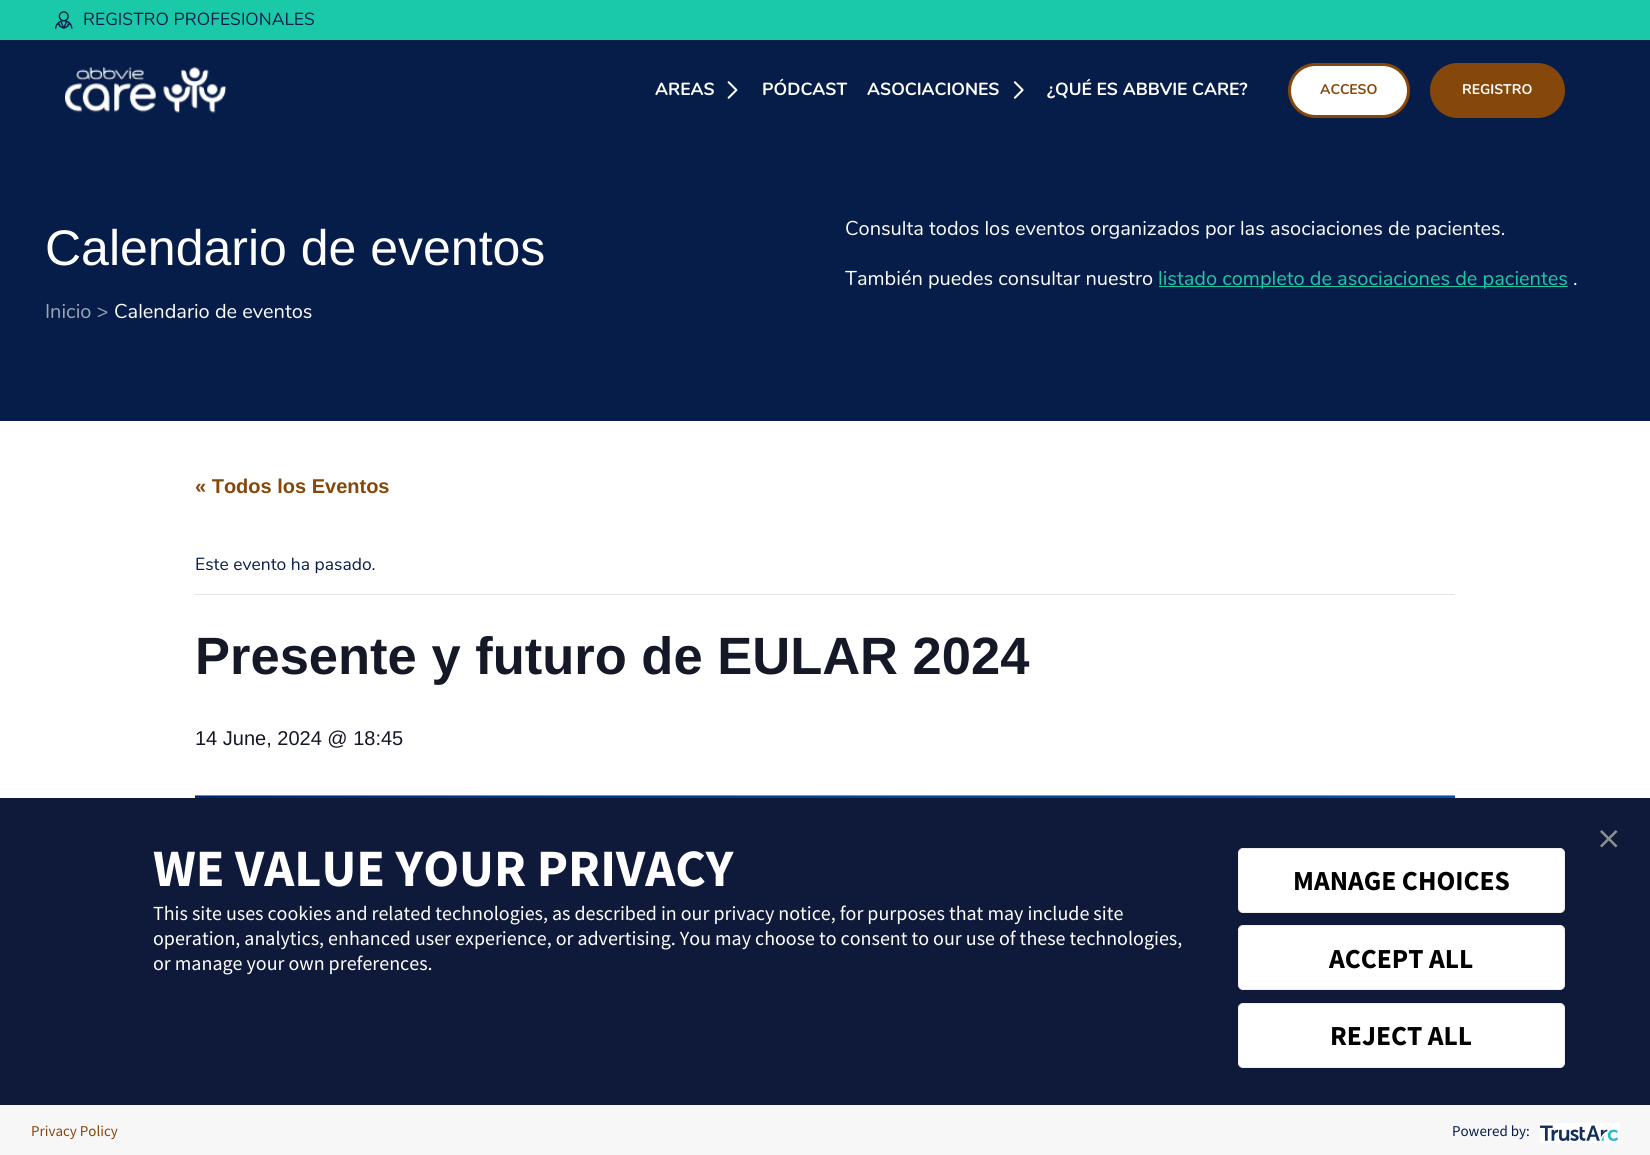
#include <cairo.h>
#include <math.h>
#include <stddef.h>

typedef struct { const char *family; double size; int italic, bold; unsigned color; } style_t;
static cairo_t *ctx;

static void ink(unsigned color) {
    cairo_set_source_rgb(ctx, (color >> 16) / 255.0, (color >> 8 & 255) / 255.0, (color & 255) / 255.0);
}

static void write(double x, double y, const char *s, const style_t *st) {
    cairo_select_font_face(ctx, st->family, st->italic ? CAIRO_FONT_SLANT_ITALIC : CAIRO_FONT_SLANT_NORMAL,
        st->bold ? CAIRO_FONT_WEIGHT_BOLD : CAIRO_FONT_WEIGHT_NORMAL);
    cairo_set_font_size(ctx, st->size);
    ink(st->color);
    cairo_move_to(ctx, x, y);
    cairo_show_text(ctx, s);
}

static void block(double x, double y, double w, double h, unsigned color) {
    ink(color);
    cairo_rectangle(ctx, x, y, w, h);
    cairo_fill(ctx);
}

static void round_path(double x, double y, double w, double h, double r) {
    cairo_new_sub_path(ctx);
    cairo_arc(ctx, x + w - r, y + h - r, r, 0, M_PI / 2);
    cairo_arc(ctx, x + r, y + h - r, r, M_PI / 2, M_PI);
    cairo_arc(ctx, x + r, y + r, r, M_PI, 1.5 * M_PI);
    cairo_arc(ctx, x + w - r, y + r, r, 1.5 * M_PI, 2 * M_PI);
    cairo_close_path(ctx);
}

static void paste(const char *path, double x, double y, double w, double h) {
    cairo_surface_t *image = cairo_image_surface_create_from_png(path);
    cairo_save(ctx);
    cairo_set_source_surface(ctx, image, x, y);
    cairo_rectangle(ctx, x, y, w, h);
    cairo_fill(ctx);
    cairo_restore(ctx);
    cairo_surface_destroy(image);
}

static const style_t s1 = {"Nunito", 17.5, 0, 0, 0x071d49};
static const style_t s2 = {"Nunito", 17.5, 0, 1, 0xffffff};
static const style_t s3 = {"Nunito", 14, 0, 1, 0x85470a};
static const style_t s4 = {"Nunito", 14, 0, 1, 0xffffff};
static const style_t s5 = {"Liberation Sans", 50, 0, 0, 0xffffff};
static const style_t s6 = {"Nunito", 20, 0, 0, 0x9ca5b6};
static const style_t s7 = {"Nunito", 20, 0, 0, 0xffffff};
static const style_t s8 = {"Nunito", 20, 0, 0, 0x1ac9a8};
static const style_t s9 = {"Liberation Sans", 20, 0, 1, 0x85470a};
static const style_t s10 = {"Liberation Sans", 52.5, 0, 1, 0x141827};
static const style_t s11 = {"Liberation Sans", 20, 0, 0, 0x141827};
static const style_t s12 = {"Source Sans Pro", 52.5, 0, 1, 0xffffff};
static const style_t s13 = {"Source Sans Pro", 20, 0, 0, 0xffffff};
static const style_t s14 = {"Source Sans Pro", 27.5, 0, 1, 0x000000};
static const style_t s15 = {"Source Sans Pro", 15, 0, 0, 0x85470a};
static const style_t s16 = {"Source Sans Pro", 15, 0, 0, 0x071d49};

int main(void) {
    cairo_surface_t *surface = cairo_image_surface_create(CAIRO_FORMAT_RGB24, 1650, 1155);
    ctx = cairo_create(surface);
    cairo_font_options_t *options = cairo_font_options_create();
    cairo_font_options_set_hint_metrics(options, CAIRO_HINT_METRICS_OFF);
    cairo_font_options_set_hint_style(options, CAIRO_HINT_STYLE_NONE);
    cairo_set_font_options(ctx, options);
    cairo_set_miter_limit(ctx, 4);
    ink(0xffffff);
    cairo_paint(ctx);
    block(0, 0, 1650, 40, 0x1ac9a8);
    paste("pic1.png", 55, 11, 18, 18);
    write(83, 25, "REGISTRO PROFESIONALES", &s1);
    block(0, 40, 1650, 381, 0x071d49);
    paste("pic2.png", 65, 67, 162, 46);
    write(655, 95, "AREAS", &s2);
    paste("pic3.png", 727, 81, 11, 18);
    write(762, 95, "PÓDCAST", &s2);
    write(867, 95, "ASOCIACIONES", &s2);
    paste("pic4.png", 1013, 81, 11, 18);
    write(1047, 95, "¿QUÉ ES ABBVIE CARE?", &s2);
    round_path(1289.5, 64.5, 119, 52, 26);
    cairo_fill_preserve(ctx);
    ink(0x85470a);
    cairo_set_line_width(ctx, 3);
    cairo_stroke(ctx);
    write(1320, 94, "ACCESO", &s3);
    round_path(1430, 63, 135, 55, 27.5);
    cairo_fill(ctx);
    write(1462, 94, "REGISTRO", &s4);
    write(45, 265, "Calendario de eventos", &s5);
    write(45, 318, "Inicio >", &s6);
    write(114, 318, "Calendario de eventos", &s7);
    write(845, 235, "Consulta todos los eventos organizados por las asociaciones de pacientes.", &s7);
    write(845, 285, "También puedes consultar nuestro", &s7);
    block(1159, 286, 409, 1, 0x1ac9a8);
    write(1158, 285, "listado completo de asociaciones de pacientes", &s8);
    write(1573, 285, ".", &s7);
    write(195, 493, "« Todos los Eventos", &s9);
    block(195, 594, 1260, 1, 0xe4e4e4);
    write(195, 570, "Este evento ha pasado.", &s1);
    write(195, 674, "Presente y futuro de EULAR 2024", &s10);
    write(195, 745, "14 June, 2024 @ 18:45", &s11);
    paste("pic5.png", 195, 795, 1260, 3);
    block(0, 798, 1650, 307, 0x0f193a);
    paste("pic6.png", 1600, 830, 18, 18);
    write(153, 886, "WE VALUE YOUR PRIVACY", &s12);
    write(153, 920, "This site uses cookies and related technologies, as described in our privacy notice, for purposes that may include site", &s13);
    write(153, 945, "operation, analytics, enhanced user experience, or advertising. You may choose to consent to our use of these technologies,", &s13);
    write(153, 970, "or manage your own preferences.", &s13);
    round_path(1238.5, 848.5, 326, 64, 4.5);
    cairo_fill_preserve(ctx);
    ink(0xeeeeee);
    cairo_set_line_width(ctx, 1);
    cairo_stroke(ctx);
    write(1293, 890, "MANAGE CHOICES", &s14);
    ink(0xffffff);
    round_path(1238.5, 925.5, 326, 64, 4.5);
    cairo_fill_preserve(ctx);
    ink(0xeeeeee);
    cairo_stroke(ctx);
    write(1329, 968, "ACCEPT ALL", &s14);
    ink(0xffffff);
    round_path(1238.5, 1003.5, 326, 64, 4.5);
    cairo_fill_preserve(ctx);
    ink(0xeeeeee);
    cairo_stroke(ctx);
    write(1330, 1045, "REJECT ALL", &s14);
    block(0, 1105, 1650, 50, 0xf7f7f7);
    write(31, 1136, "Privacy Policy", &s15);
    write(1452, 1136, "Powered by:", &s16);
    paste("pic7.png", 1540, 1123, 80, 20);
    cairo_surface_write_to_png(surface, "screenshot.png");
    cairo_font_options_destroy(options);
    cairo_destroy(ctx);
    cairo_surface_destroy(surface);
    return 0;
}
